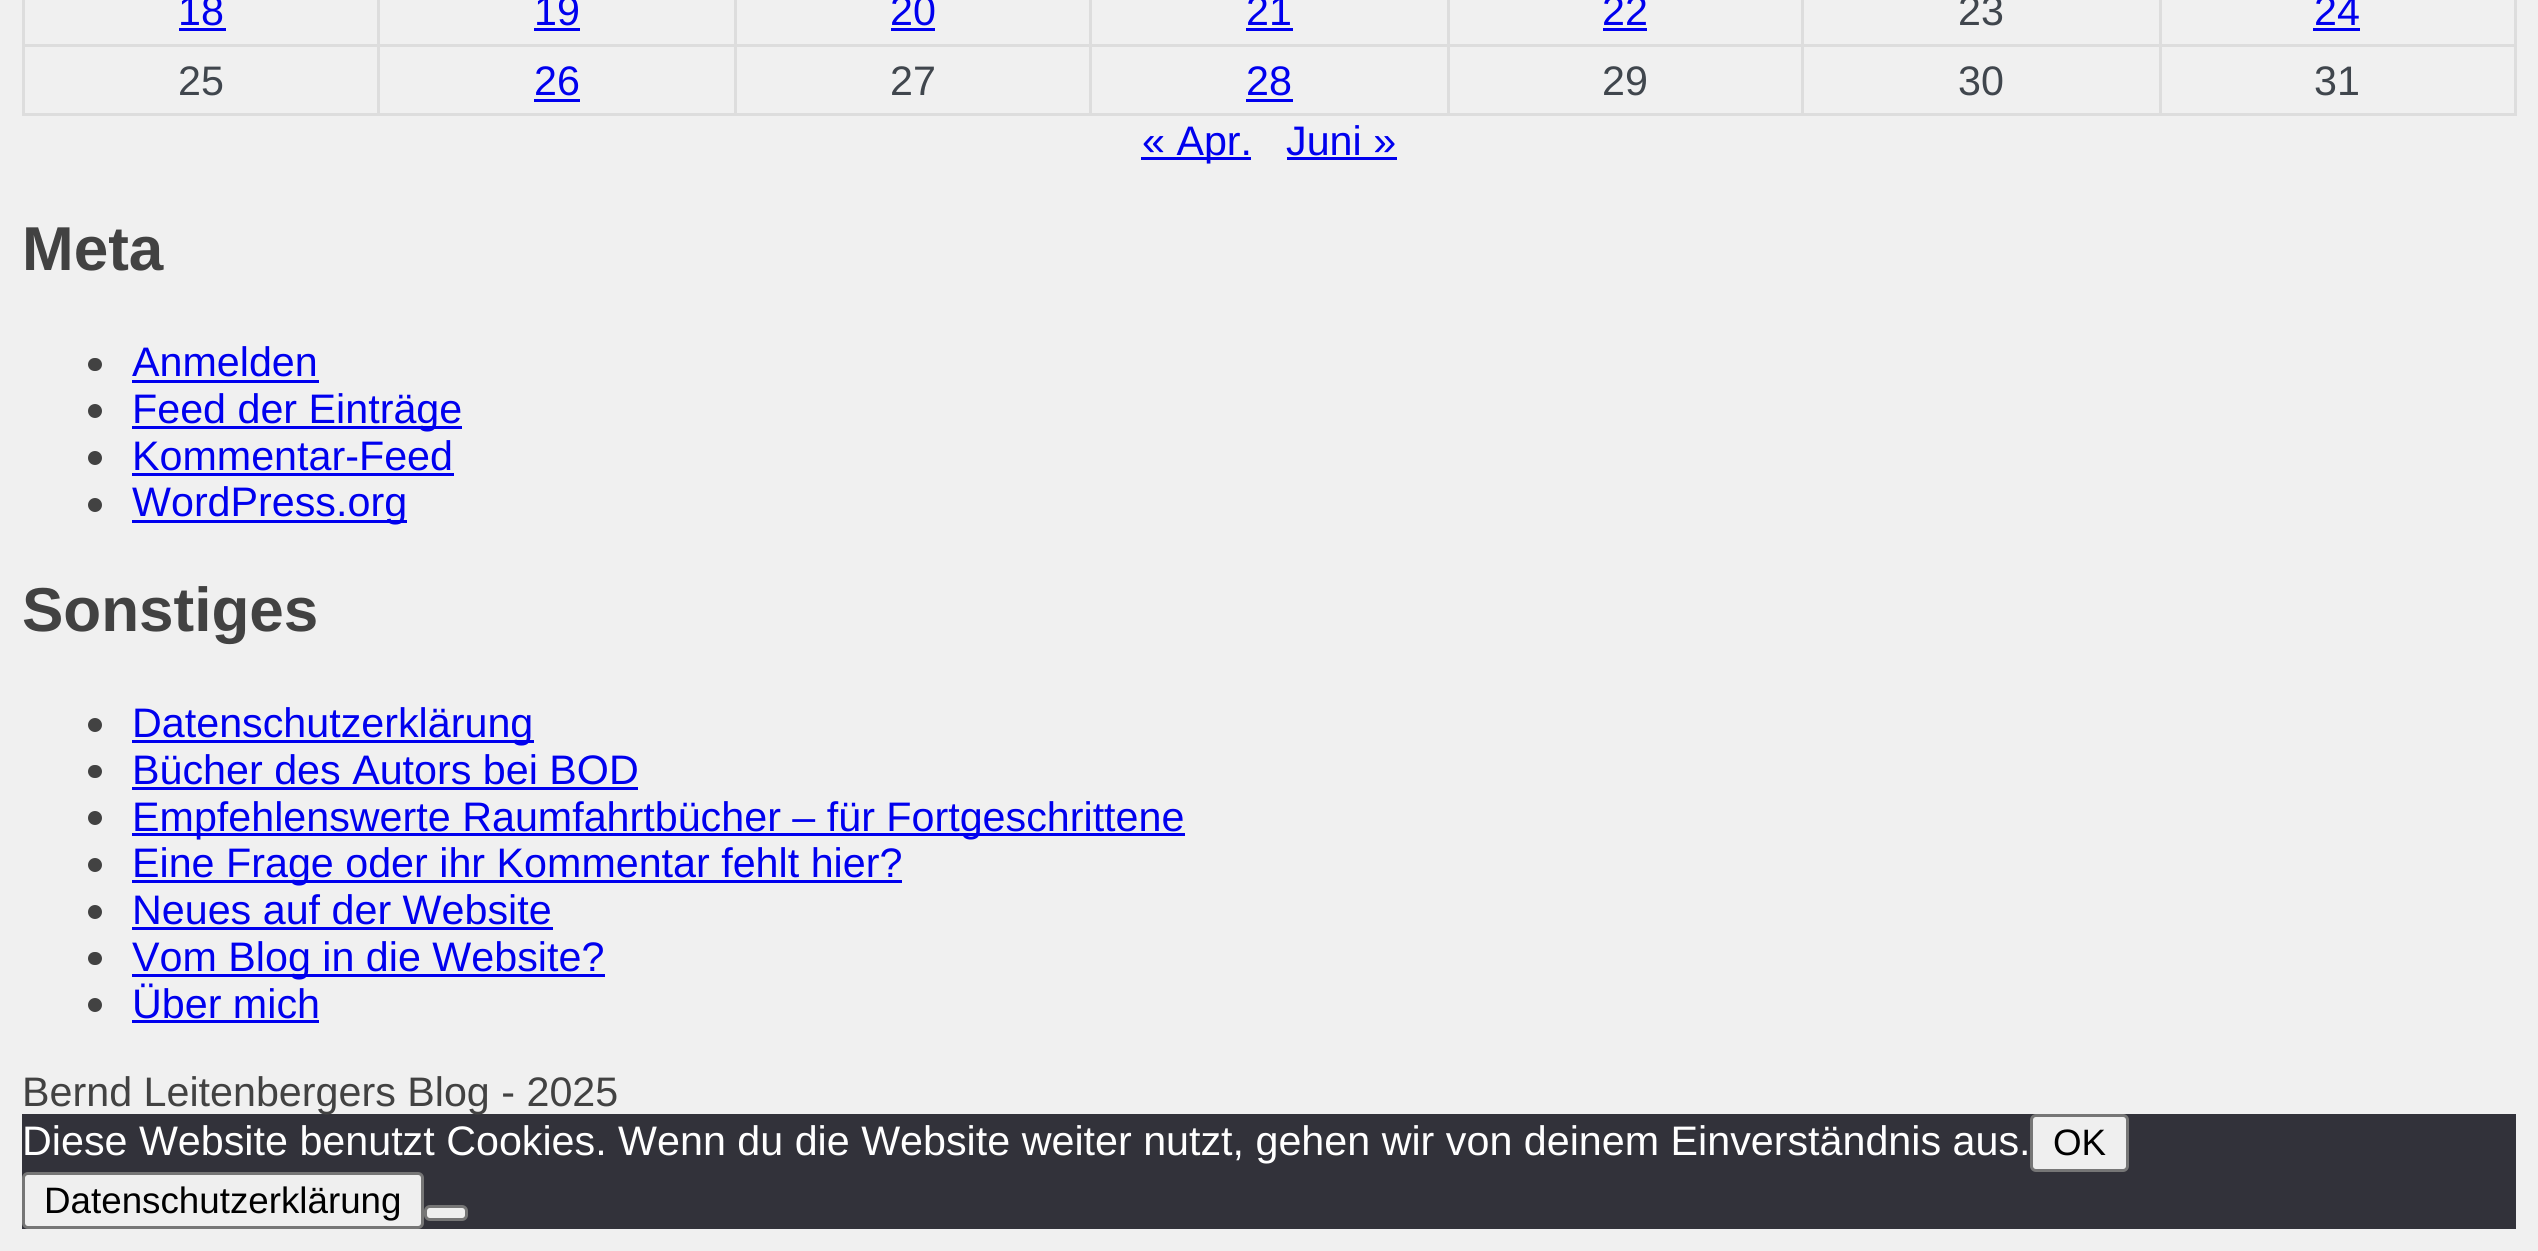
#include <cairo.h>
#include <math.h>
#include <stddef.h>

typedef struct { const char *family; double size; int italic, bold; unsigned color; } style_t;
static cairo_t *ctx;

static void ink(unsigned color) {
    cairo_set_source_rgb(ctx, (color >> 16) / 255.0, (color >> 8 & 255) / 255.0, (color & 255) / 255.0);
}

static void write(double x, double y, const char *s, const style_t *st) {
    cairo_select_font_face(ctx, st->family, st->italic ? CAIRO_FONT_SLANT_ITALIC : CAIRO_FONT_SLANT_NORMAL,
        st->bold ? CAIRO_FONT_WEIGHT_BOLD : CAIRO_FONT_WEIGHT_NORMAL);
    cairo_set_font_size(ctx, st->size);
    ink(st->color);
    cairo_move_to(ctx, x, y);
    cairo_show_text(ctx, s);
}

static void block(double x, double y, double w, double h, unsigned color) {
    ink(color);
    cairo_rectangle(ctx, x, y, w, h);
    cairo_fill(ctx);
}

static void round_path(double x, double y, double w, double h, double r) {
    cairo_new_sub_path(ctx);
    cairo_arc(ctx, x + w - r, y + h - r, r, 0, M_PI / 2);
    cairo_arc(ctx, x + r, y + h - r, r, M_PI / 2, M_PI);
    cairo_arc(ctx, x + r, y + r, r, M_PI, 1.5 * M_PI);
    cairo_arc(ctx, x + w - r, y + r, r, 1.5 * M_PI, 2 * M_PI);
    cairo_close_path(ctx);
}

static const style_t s1 = {"Liberation Sans", 41.25, 0, 0, 0x0000ee};
static const style_t s2 = {"Liberation Sans", 41.25, 0, 0, 0x40464d};
static const style_t s3 = {"Liberation Sans", 62, 0, 1, 0x424242};
static const style_t s4 = {"Liberation Sans", 41.25, 0, 0, 0x424242};
static const style_t s5 = {"Liberation Sans", 41.25, 0, 0, 0xffffff};
static const style_t s6 = {"Liberation Sans", 36.75, 0, 0, 0x000000};

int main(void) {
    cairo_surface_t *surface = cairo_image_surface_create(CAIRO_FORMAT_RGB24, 2538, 1251);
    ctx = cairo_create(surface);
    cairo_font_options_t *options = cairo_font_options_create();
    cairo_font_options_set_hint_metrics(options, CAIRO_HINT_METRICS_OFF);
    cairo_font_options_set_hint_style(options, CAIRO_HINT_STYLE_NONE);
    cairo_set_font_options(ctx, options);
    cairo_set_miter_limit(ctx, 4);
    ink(0xf0f0f0);
    cairo_paint(ctx);
    write(178, 25, "18", &s1);
    block(179, 28, 47, 3, 0x0000ee);
    block(2159, 44, 357, 3, 0xdddddd);
    block(2514, 0, 3, 116, 0xdddddd);
    block(2159, 113, 357, 3, 0xdddddd);
    block(2159, 44, 3, 72, 0xdddddd);
    block(1801, 44, 361, 3, 0xdddddd);
    block(1801, 113, 361, 3, 0xdddddd);
    block(1801, 44, 3, 72, 0xdddddd);
    block(1447, 44, 357, 3, 0xdddddd);
    block(1447, 113, 357, 3, 0xdddddd);
    block(1447, 44, 3, 72, 0xdddddd);
    block(1089, 44, 360, 3, 0xdddddd);
    block(1089, 113, 360, 3, 0xdddddd);
    block(1089, 44, 3, 72, 0xdddddd);
    block(734, 44, 358, 3, 0xdddddd);
    block(734, 113, 358, 3, 0xdddddd);
    block(734, 44, 3, 72, 0xdddddd);
    block(377, 44, 360, 3, 0xdddddd);
    block(377, 113, 360, 3, 0xdddddd);
    block(377, 44, 3, 72, 0xdddddd);
    block(22, 44, 358, 3, 0xdddddd);
    block(377, 0, 3, 47, 0xdddddd);
    write(534, 25, "19", &s1);
    block(534, 28, 46, 3, 0x0000ee);
    block(734, 0, 3, 47, 0xdddddd);
    write(890, 25, "20", &s1);
    block(891, 28, 44, 3, 0x0000ee);
    block(1089, 0, 3, 47, 0xdddddd);
    write(1246, 25, "21", &s1);
    block(1246, 28, 47, 3, 0x0000ee);
    block(1447, 0, 3, 47, 0xdddddd);
    write(1602, 25, "22", &s1);
    block(1603, 28, 44, 3, 0x0000ee);
    block(1801, 0, 3, 47, 0xdddddd);
    write(1958, 25, "23", &s2);
    block(2159, 0, 3, 47, 0xdddddd);
    write(2314, 25, "24", &s1);
    block(2313, 28, 47, 3, 0x0000ee);
    block(22, 113, 358, 3, 0xdddddd);
    block(22, 0, 3, 116, 0xdddddd);
    write(178, 95, "25", &s2);
    write(534, 95, "26", &s1);
    block(534, 99, 46, 3, 0x0000ee);
    write(890, 95, "27", &s2);
    write(1246, 95, "28", &s1);
    block(1246, 99, 47, 3, 0x0000ee);
    write(1602, 95, "29", &s2);
    write(1958, 95, "30", &s2);
    write(2314, 95, "31", &s2);
    block(1141, 157, 110, 3, 0x0000ee);
    write(1142, 155, "« Apr.", &s1);
    write(1286, 155, "Juni »", &s1);
    block(1287, 157, 110, 3, 0x0000ee);
    write(22, 270, "Meta", &s3);
    round_path(88, 358, 14, 13, 6.5);
    cairo_fill(ctx);
    write(132, 376, "Anmelden", &s1);
    block(132, 380, 187, 3, 0x0000ee);
    ink(0x424242);
    cairo_new_path(ctx);
    cairo_arc(ctx, 95, 411, 7, 0, 2 * M_PI);
    cairo_fill(ctx);
    block(132, 426, 330, 3, 0x0000ee);
    write(132, 423, "Feed der Einträge", &s1);
    ink(0x424242);
    cairo_new_path(ctx);
    cairo_arc(ctx, 95, 458, 7, 0, 2 * M_PI);
    cairo_fill(ctx);
    write(132, 470, "Kommentar-Feed", &s1);
    block(132, 473, 322, 3, 0x0000ee);
    ink(0x424242);
    cairo_new_path(ctx);
    cairo_arc(ctx, 95, 505, 7, 0, 2 * M_PI);
    cairo_fill(ctx);
    block(132, 520, 275, 3, 0x0000ee);
    write(132, 516, "WordPress.org", &s1);
    write(22, 631, "Sonstiges", &s3);
    cairo_new_path(ctx);
    cairo_arc(ctx, 95, 725, 7, 0, 2 * M_PI);
    cairo_fill(ctx);
    block(132, 740, 402, 3, 0x0000ee);
    write(132, 737, "Datenschutzerklärung", &s1);
    ink(0x424242);
    round_path(88, 765, 14, 13, 6.5);
    cairo_fill(ctx);
    write(132, 784, "Bücher des Autors bei BOD", &s1);
    block(132, 787, 506, 3, 0x0000ee);
    ink(0x424242);
    cairo_new_path(ctx);
    cairo_arc(ctx, 95, 818, 7, 0, 2 * M_PI);
    cairo_fill(ctx);
    block(132, 833, 1053, 3, 0x0000ee);
    write(132, 831, "Empfehlenswerte Raumfahrtbücher – für Fortgeschrittene", &s1);
    ink(0x424242);
    cairo_new_path(ctx);
    cairo_arc(ctx, 95, 865, 7, 0, 2 * M_PI);
    cairo_fill(ctx);
    block(132, 880, 770, 3, 0x0000ee);
    write(132, 877, "Eine Frage oder ihr Kommentar fehlt hier?", &s1);
    ink(0x424242);
    cairo_new_path(ctx);
    cairo_arc(ctx, 95, 912, 7, 0, 2 * M_PI);
    cairo_fill(ctx);
    write(132, 924, "Neues auf der Website", &s1);
    block(132, 927, 421, 3, 0x0000ee);
    ink(0x424242);
    round_path(88, 952, 14, 13, 6.5);
    cairo_fill(ctx);
    block(132, 974, 473, 3, 0x0000ee);
    write(132, 971, "Vom Blog in die Website?", &s1);
    ink(0x424242);
    cairo_new_path(ctx);
    cairo_arc(ctx, 95, 1005, 7, 0, 2 * M_PI);
    cairo_fill(ctx);
    write(132, 1018, "Über mich", &s1);
    block(132, 1020, 187, 3, 0x0000ee);
    block(22, 1114, 2494, 115, 0x32323a);
    write(22, 1106, "Bernd Leitenbergers Blog - 2025", &s4);
    write(22, 1155, "Diese Website benutzt Cookies. Wenn du die Website weiter nutzt, gehen wir von deinem Einverständnis aus.", &s5);
    ink(0xefefef);
    round_path(2031.5, 1115.5, 96, 55, 4.5);
    cairo_fill_preserve(ctx);
    ink(0x767676);
    cairo_set_line_width(ctx, 3);
    cairo_stroke(ctx);
    write(2053, 1155, "OK", &s6);
    ink(0xefefef);
    round_path(23.5, 1173.5, 399, 54, 4.5);
    cairo_fill_preserve(ctx);
    ink(0x767676);
    cairo_stroke(ctx);
    write(44, 1213, "Datenschutzerklärung", &s6);
    ink(0xefefef);
    round_path(425.5, 1206.5, 41, 13, 4.5);
    cairo_fill_preserve(ctx);
    ink(0x767676);
    cairo_stroke(ctx);
    cairo_surface_write_to_png(surface, "screenshot.png");
    cairo_font_options_destroy(options);
    cairo_destroy(ctx);
    cairo_surface_destroy(surface);
    return 0;
}
